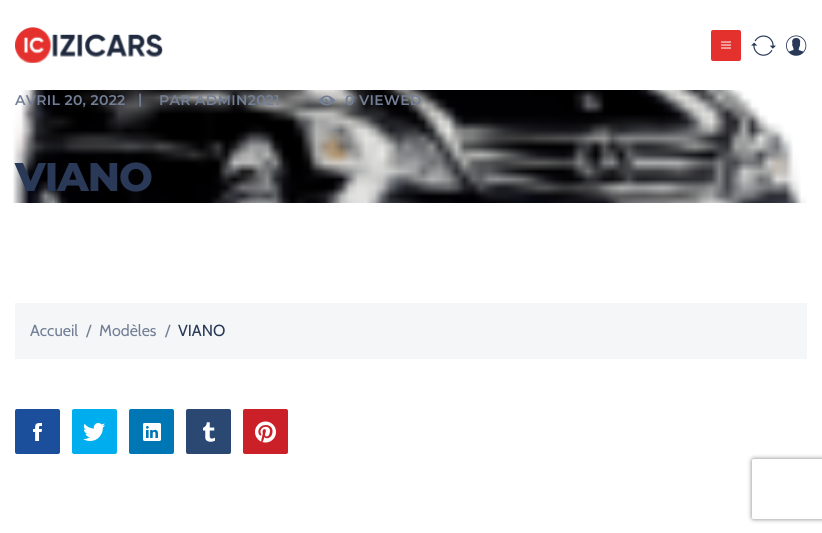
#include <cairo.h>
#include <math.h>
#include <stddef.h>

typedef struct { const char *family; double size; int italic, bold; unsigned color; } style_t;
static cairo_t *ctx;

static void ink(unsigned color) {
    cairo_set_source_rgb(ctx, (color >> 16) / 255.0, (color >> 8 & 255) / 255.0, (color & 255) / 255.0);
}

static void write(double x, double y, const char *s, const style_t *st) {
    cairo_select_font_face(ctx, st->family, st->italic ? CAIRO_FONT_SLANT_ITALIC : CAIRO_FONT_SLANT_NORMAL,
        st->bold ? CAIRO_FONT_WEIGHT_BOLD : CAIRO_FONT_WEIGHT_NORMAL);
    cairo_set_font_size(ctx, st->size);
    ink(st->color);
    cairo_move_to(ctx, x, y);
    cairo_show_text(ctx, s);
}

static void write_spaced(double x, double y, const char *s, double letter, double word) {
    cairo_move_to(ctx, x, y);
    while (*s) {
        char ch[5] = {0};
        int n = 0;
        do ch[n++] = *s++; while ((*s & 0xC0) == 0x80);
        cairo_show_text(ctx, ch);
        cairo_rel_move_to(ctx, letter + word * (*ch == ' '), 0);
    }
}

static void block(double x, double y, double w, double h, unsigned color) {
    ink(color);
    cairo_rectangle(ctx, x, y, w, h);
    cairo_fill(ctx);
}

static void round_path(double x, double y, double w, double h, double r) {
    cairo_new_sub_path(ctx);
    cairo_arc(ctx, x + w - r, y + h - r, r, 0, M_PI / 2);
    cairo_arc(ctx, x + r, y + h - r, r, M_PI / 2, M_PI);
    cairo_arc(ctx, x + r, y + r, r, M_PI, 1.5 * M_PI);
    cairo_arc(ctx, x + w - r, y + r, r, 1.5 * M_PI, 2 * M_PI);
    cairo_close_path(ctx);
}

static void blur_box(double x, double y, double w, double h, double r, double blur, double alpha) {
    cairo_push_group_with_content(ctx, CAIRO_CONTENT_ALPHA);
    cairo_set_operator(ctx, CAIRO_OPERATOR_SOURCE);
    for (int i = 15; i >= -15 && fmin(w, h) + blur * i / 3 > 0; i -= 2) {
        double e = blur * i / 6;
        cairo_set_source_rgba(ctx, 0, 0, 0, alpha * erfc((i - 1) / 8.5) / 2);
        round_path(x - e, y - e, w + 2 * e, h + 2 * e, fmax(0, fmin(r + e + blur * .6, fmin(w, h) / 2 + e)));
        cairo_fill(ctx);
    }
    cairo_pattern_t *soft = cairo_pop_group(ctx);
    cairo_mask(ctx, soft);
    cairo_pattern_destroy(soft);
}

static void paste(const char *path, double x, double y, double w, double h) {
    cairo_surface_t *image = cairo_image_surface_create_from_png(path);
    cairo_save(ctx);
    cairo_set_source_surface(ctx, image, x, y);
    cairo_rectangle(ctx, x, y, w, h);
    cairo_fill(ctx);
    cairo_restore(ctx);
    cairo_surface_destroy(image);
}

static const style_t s1 = {"Cabin", 16, 0, 0, 0x737f96};
static const style_t s2 = {"Cabin", 16, 0, 0, 0x293957};

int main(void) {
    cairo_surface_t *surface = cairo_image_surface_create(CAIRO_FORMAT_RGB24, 822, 533);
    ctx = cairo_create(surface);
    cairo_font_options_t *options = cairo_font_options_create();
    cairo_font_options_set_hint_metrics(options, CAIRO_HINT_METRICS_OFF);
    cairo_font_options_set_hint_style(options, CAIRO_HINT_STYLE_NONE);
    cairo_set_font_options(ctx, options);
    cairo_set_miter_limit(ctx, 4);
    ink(0xffffff);
    cairo_paint(ctx);
    paste("pic1.png", 15, 27, 148, 36);
    ink(0xe4312d);
    round_path(711, 30, 30, 31, 2);
    cairo_fill(ctx);
    paste("pic2.png", 721, 41, 10, 8);
    paste("pic3.png", 751, 35, 25, 21);
    paste("pic4.png", 786, 35, 21, 21);
    paste("pic5.png", 13, 90, 794, 113);
    cairo_select_font_face(ctx, "Montserrat SemiBold", CAIRO_FONT_SLANT_NORMAL, CAIRO_FONT_WEIGHT_NORMAL);
    cairo_set_font_size(ctx, 14);
    ink(0x737f96);
    write_spaced(15, 105, "AVRIL 20, 2022", 0.3, 0);
    write_spaced(138, 104, "|", 0.3, 0);
    write_spaced(159, 105, "PAR ADMIN2021", 0.3, 0);
    paste("pic6.png", 318, 95, 18, 11);
    write_spaced(345, 105, "0 VIEWED", 0.3, 0);
    cairo_select_font_face(ctx, "Montserrat ExtraBold", CAIRO_FONT_SLANT_NORMAL, CAIRO_FONT_WEIGHT_NORMAL);
    cairo_set_font_size(ctx, 40);
    ink(0x293957);
    write_spaced(15, 191, "VIANO", -1, 0);
    block(15, 303, 792, 56, 0xf4f6f7);
    write(30, 336, "Accueil", &s1);
    write(86, 336, "/", &s1);
    write(99, 336, "Modèles", &s1);
    write(165, 336, "/", &s1);
    write(178, 336, "VIANO", &s2);
    ink(0x1b4e9b);
    round_path(15, 409, 45, 45, 2);
    cairo_fill(ctx);
    paste("pic7.png", 33, 423, 9, 18);
    ink(0x00aeef);
    round_path(72, 409, 45, 45, 2);
    cairo_fill(ctx);
    paste("pic8.png", 83, 423, 22, 18);
    ink(0x0077b5);
    round_path(129, 409, 45, 45, 2);
    cairo_fill(ctx);
    paste("pic9.png", 143, 423, 18, 18);
    ink(0x2b4873);
    round_path(186, 409, 45, 45, 2);
    cairo_fill(ctx);
    paste("pic10.png", 203, 422, 12, 20);
    ink(0xcb2027);
    round_path(243, 409, 45, 45, 2);
    cairo_fill(ctx);
    paste("pic11.png", 255, 421, 21, 22);
    cairo_save(ctx);
    cairo_set_fill_rule(ctx, CAIRO_FILL_RULE_EVEN_ODD);
    cairo_new_path(ctx);
    cairo_move_to(ctx, 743, 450);
    cairo_line_to(ctx, 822, 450);
    cairo_line_to(ctx, 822, 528);
    cairo_line_to(ctx, 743, 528);
    cairo_close_path(ctx);
    cairo_move_to(ctx, 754, 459);
    cairo_line_to(ctx, 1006, 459);
    cairo_curve_to(ctx, 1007, 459, 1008, 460, 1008, 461);
    cairo_line_to(ctx, 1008, 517);
    cairo_curve_to(ctx, 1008, 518, 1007, 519, 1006, 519);
    cairo_line_to(ctx, 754, 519);
    cairo_curve_to(ctx, 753, 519, 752, 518, 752, 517);
    cairo_line_to(ctx, 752, 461);
    cairo_curve_to(ctx, 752, 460, 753, 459, 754, 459);
    cairo_close_path(ctx);
    cairo_clip(ctx);
    ink(0x808080);
    blur_box(752, 459, 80, 60, 2, 2.5, 1);
    cairo_restore(ctx);
    cairo_surface_write_to_png(surface, "screenshot.png");
    cairo_font_options_destroy(options);
    cairo_destroy(ctx);
    cairo_surface_destroy(surface);
    return 0;
}
